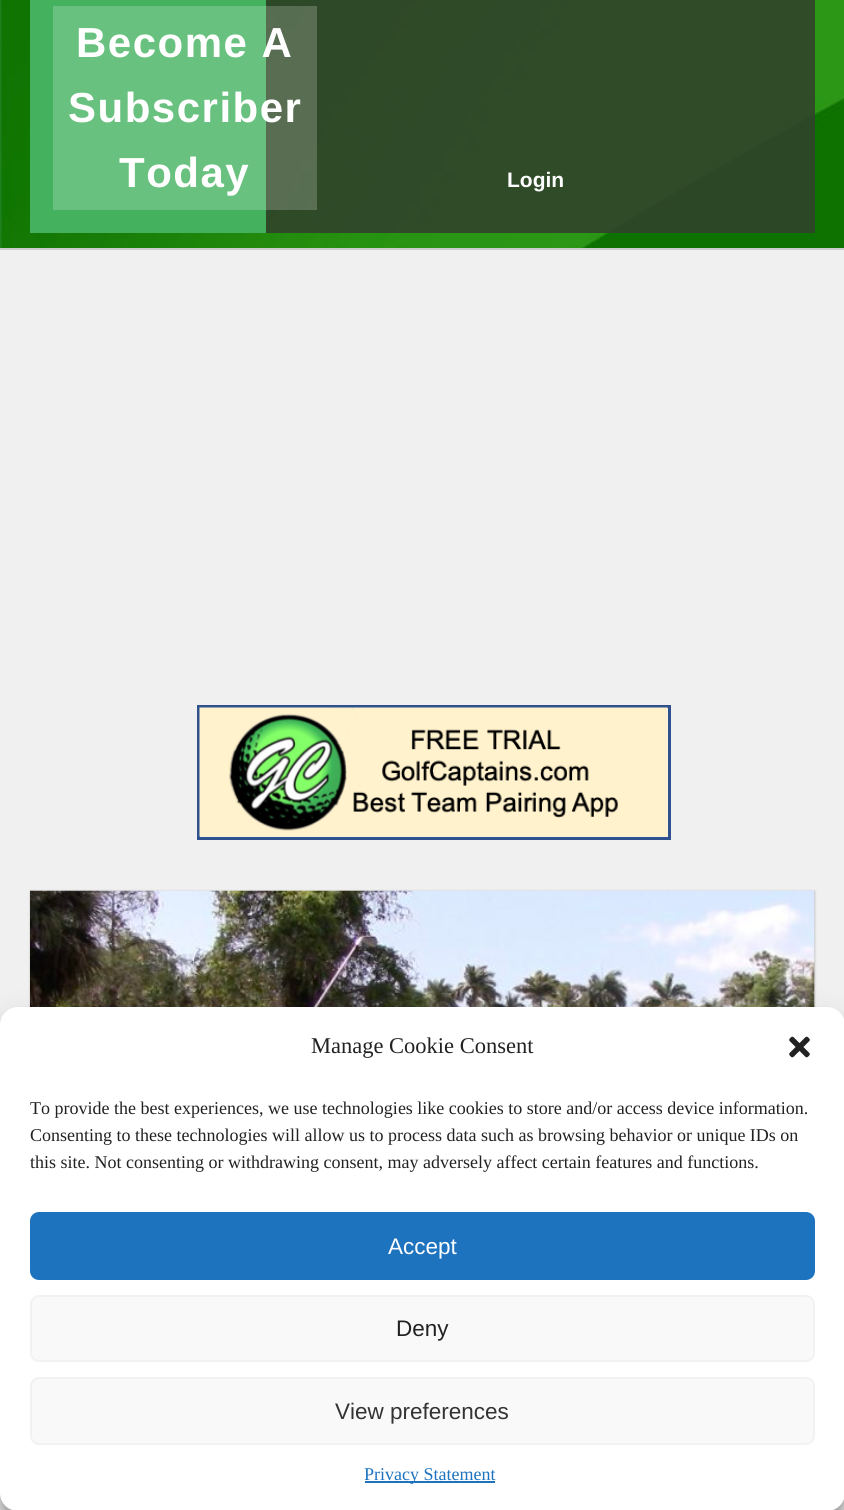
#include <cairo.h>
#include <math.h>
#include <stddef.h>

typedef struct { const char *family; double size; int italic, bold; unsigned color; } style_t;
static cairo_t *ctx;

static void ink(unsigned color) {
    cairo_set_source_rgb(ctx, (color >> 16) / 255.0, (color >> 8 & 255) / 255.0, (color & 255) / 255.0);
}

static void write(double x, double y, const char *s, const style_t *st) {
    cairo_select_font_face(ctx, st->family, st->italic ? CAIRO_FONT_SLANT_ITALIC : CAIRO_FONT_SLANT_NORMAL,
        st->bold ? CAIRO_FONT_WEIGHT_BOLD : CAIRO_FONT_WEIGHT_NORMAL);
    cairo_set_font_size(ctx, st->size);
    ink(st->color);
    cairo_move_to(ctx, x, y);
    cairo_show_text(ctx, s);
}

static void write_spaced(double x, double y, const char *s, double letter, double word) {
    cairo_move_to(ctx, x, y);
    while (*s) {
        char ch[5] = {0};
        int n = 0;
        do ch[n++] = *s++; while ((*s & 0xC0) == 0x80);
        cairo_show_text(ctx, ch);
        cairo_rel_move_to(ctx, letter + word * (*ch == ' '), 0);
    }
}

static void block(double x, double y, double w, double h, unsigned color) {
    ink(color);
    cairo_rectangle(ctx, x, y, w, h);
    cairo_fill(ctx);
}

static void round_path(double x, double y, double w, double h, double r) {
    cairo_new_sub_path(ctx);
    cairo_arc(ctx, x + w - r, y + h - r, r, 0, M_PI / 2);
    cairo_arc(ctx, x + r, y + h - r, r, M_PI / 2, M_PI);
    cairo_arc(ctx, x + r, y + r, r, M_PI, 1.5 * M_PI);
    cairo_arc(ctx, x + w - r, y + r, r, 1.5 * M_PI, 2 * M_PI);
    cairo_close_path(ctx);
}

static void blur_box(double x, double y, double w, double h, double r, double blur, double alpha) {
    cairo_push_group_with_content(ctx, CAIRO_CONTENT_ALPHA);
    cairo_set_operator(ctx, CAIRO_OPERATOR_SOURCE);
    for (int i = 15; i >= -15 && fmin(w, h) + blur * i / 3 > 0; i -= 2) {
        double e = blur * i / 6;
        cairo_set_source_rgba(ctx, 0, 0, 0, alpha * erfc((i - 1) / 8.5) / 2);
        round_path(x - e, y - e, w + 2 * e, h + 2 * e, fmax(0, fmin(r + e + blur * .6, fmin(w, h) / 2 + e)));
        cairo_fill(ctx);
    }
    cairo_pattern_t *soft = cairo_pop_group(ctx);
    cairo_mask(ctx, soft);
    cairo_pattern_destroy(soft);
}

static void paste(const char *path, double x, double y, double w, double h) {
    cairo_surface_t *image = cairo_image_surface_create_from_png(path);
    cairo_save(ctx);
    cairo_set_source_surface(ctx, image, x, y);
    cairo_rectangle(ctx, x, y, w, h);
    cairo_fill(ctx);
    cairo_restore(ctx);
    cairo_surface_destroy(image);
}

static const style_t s1 = {"Liberation Sans", 21, 0, 1, 0xffffff};
static const style_t s2 = {"Liberation Serif", 22.5, 0, 0, 0x222222};
static const style_t s3 = {"Liberation Serif", 18, 0, 0, 0x222222};
static const style_t s4 = {"Liberation Sans", 22.5, 0, 0, 0xffffff};
static const style_t s5 = {"Liberation Sans", 22.5, 0, 0, 0x222222};
static const style_t s6 = {"Liberation Sans", 22.5, 0, 0, 0x333333};
static const style_t s7 = {"Liberation Serif", 18, 0, 0, 0x1e73be};

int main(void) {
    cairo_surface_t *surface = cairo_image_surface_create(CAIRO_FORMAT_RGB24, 844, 1510);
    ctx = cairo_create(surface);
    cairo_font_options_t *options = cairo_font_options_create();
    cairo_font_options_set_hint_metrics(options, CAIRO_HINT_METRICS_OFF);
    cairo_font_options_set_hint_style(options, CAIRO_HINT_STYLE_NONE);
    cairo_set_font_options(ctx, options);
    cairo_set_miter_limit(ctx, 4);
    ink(0xf0f0f0);
    cairo_paint(ctx);
    paste("pic1.png", 0, 0, 844, 248);
    block(0, 248, 844, 2, 0xcccccc);
    cairo_set_source_rgba(ctx, 0.188, 0.263, 0.169, 0.9);
    cairo_rectangle(ctx, 266, 0, 549, 233);
    cairo_fill(ctx);
    block(30, 0, 236, 233, 0x44b15f);
    cairo_set_source_rgba(ctx, 1, 1, 1, 0.2);
    cairo_rectangle(ctx, 53, 6, 264, 204);
    cairo_fill(ctx);
    cairo_select_font_face(ctx, "Liberation Sans", CAIRO_FONT_SLANT_NORMAL, CAIRO_FONT_WEIGHT_BOLD);
    cairo_set_font_size(ctx, 42);
    ink(0xffffff);
    write_spaced(76, 57, "Become A", 1.5, 0);
    write_spaced(68, 122, "Subscriber", 1.5, 0);
    write_spaced(119, 187, "Today", 1.5, 0);
    write(507, 187, "Login", &s1);
    cairo_rectangle(ctx, 198.5, 706.5, 471, 132);
    ink(0x2f528f);
    cairo_set_line_width(ctx, 3);
    cairo_stroke(ctx);
    paste("pic2.png", 199, 707, 469, 130);
    ink(0x000000);
    blur_box(30, 891, 785, 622, 0, 1, 0.2);
    paste("pic3.png", 30, 890, 785, 117);
    blur_box(0, 1016, 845, 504, 18, 4.5, 0.23);
    blur_box(0, 1022, 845, 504, 18, 15, 0.19);
    ink(0xffffff);
    round_path(0, 1007, 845, 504, 18);
    cairo_fill(ctx);
    write(311, 1053, "Manage Cookie Consent", &s2);
    paste("pic4.png", 789, 1036, 21, 22);
    write(30, 1114, "To provide the best experiences, we use technologies like cookies to store and/or access device information.", &s3);
    write(30, 1141, "Consenting to these technologies will allow us to process data such as browsing behavior or unique IDs on", &s3);
    write(30, 1168, "this site. Not consenting or withdrawing consent, may adversely affect certain features and functions.", &s3);
    ink(0x1e73be);
    round_path(31, 1213, 783, 66, 8);
    cairo_fill_preserve(ctx);
    cairo_set_line_width(ctx, 2);
    cairo_stroke(ctx);
    write(388, 1254, "Accept", &s4);
    ink(0xf9f9f9);
    round_path(31, 1296, 783, 65, 8);
    cairo_fill_preserve(ctx);
    ink(0xf2f2f2);
    cairo_stroke(ctx);
    write(396, 1336, "Deny", &s5);
    ink(0xf9f9f9);
    round_path(31, 1378, 783, 66, 8);
    cairo_fill_preserve(ctx);
    ink(0xf2f2f2);
    cairo_stroke(ctx);
    write(335, 1419, "View preferences", &s6);
    block(365, 1481, 130, 2, 0x1e73be);
    write(364, 1480, "Privacy Statement", &s7);
    cairo_surface_write_to_png(surface, "screenshot.png");
    cairo_font_options_destroy(options);
    cairo_destroy(ctx);
    cairo_surface_destroy(surface);
    return 0;
}
